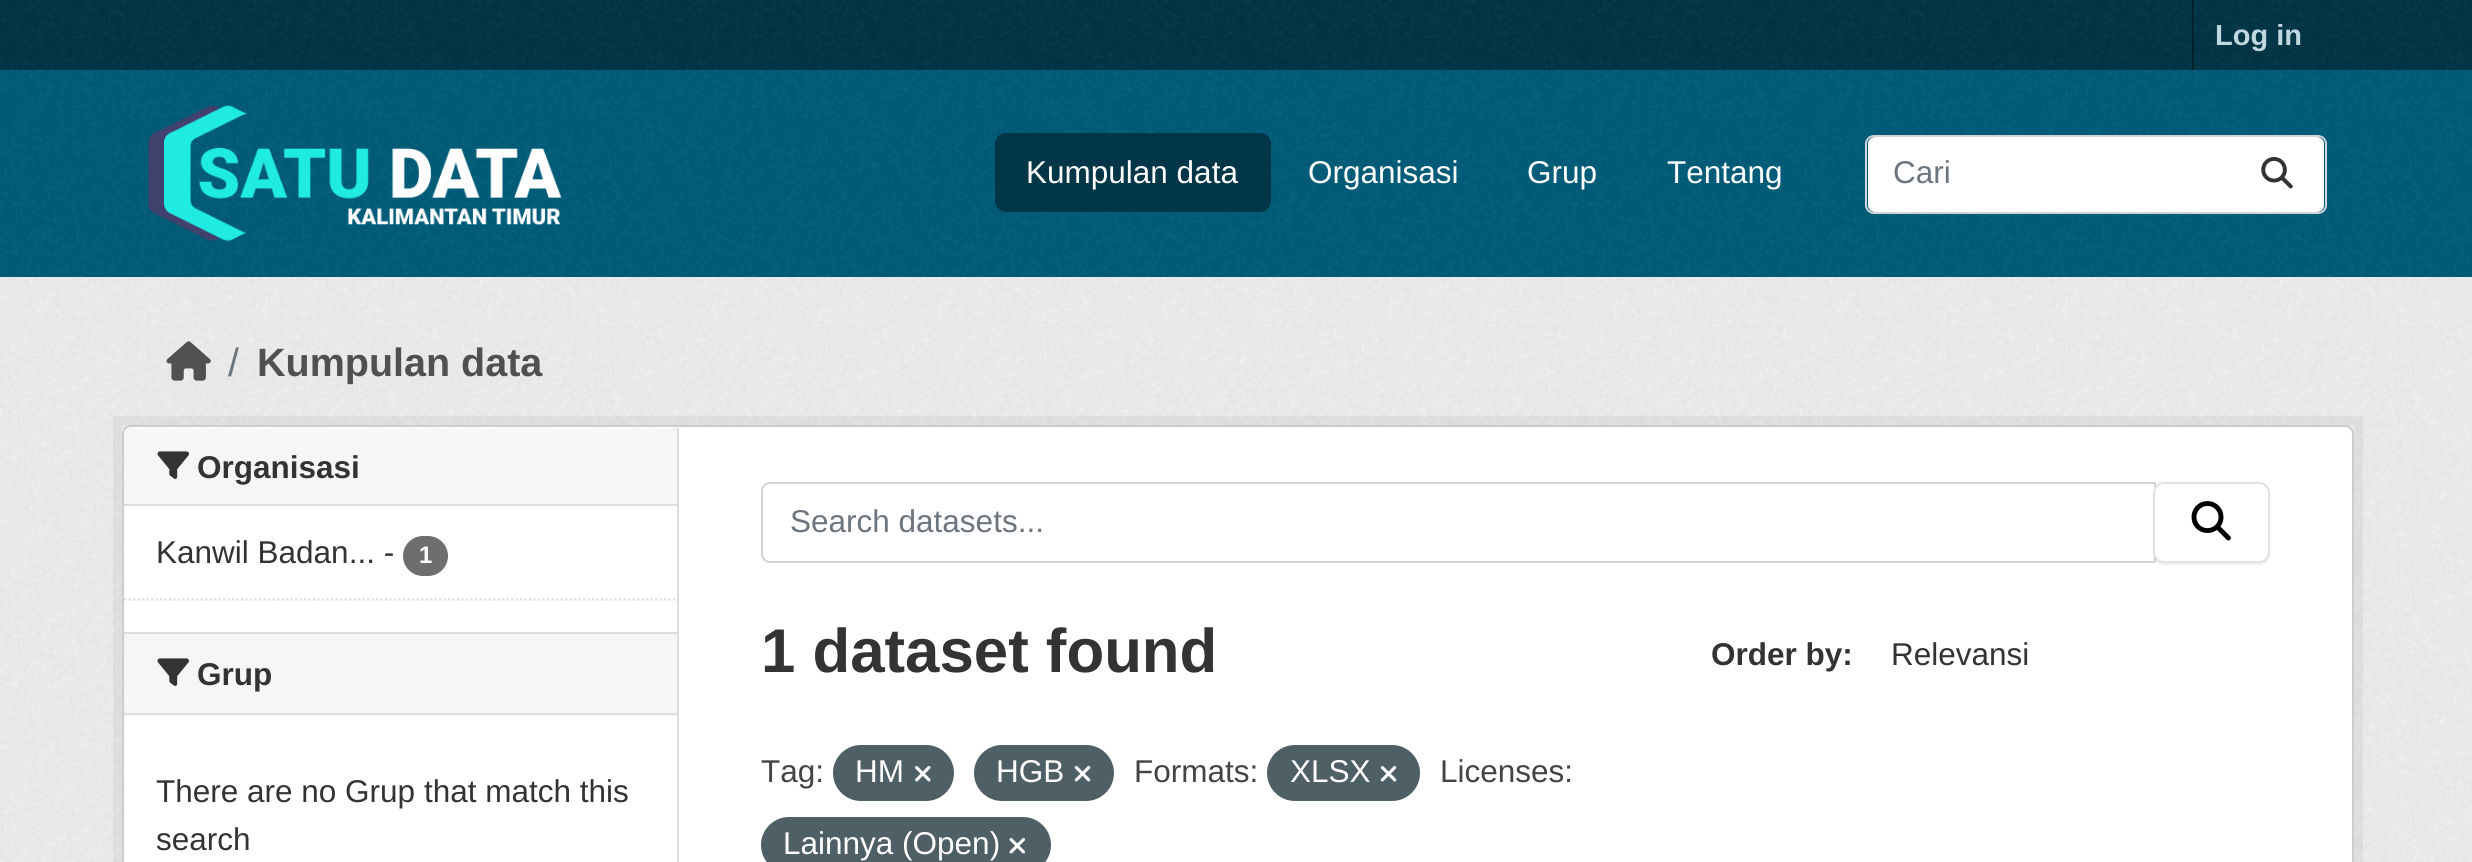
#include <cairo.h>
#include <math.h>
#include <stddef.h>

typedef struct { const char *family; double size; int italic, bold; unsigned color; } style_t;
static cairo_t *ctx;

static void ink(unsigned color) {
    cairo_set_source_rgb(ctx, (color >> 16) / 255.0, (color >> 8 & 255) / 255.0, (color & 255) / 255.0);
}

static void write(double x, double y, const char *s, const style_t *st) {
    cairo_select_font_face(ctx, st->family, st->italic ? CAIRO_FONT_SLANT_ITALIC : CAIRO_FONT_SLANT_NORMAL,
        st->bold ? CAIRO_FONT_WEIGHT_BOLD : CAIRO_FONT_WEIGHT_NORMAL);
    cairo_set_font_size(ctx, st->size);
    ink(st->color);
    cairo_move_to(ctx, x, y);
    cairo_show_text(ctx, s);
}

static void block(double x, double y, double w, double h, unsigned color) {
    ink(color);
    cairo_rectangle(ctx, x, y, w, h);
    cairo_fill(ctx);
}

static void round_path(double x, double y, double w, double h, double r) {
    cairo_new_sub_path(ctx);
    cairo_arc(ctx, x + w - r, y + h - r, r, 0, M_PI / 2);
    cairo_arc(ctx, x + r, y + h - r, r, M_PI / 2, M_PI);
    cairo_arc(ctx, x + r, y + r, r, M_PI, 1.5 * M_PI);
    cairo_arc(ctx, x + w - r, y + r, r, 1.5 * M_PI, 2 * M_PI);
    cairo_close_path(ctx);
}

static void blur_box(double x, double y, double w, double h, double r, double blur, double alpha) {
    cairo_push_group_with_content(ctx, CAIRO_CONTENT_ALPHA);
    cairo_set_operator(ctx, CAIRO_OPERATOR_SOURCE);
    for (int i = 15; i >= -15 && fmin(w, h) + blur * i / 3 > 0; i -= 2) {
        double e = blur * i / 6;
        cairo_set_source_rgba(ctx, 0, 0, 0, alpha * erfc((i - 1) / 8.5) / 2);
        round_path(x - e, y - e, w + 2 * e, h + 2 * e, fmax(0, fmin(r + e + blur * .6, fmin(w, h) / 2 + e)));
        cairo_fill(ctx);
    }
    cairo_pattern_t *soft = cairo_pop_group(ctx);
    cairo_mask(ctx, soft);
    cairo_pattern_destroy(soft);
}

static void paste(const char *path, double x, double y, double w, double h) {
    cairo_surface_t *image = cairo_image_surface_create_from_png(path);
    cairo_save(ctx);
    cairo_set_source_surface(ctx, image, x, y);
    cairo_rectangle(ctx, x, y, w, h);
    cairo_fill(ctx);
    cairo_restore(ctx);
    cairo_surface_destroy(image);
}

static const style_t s1 = {"Liberation Sans", 29, 0, 1, 0xbfd7de};
static const style_t s2 = {"Liberation Sans", 31.5, 0, 0, 0xffffff};
static const style_t s3 = {"Liberation Sans", 31.5, 0, 0, 0x6c757d};
static const style_t s4 = {"Liberation Sans", 39.5, 0, 0, 0x6c757d};
static const style_t s5 = {"Liberation Sans", 39.5, 0, 1, 0x505050};
static const style_t s6 = {"Liberation Sans", 31.5, 0, 1, 0x333333};
static const style_t s7 = {"Liberation Sans", 31.5, 0, 0, 0x333333};
static const style_t s8 = {"Liberation Sans", 24, 0, 1, 0xffffff};
static const style_t s9 = {"Liberation Sans", 61.75, 0, 1, 0x333333};
static const style_t s10 = {"Liberation Sans", 31.5, 0, 0, 0x444444};

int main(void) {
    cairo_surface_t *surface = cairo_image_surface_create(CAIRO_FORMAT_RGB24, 2472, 862);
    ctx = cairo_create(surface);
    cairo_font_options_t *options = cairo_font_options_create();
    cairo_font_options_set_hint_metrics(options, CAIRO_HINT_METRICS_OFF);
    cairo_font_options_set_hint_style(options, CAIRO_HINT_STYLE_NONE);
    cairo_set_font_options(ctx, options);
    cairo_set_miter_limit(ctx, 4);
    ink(0x003647);
    cairo_paint(ctx);
    paste("pic1.png", 0, 0, 2472, 70);
    block(2192, 0, 2, 70, 0x00232e);
    write(2215, 45, "Log in", &s1);
    block(0, 70, 2472, 207, 0x005d7a);
    paste("pic2.png", 0, 70, 2472, 207);
    paste("pic3.png", 148, 105, 414, 136);
    ink(0x003647);
    round_path(995, 133, 276, 79, 11);
    cairo_fill(ctx);
    write(1026, 183, "Kumpulan data", &s2);
    write(1308, 183, "Organisasi", &s2);
    write(1527, 183, "Grup", &s2);
    write(1667, 183, "Tentang", &s2);
    round_path(1868, 137, 456, 75, 7);
    cairo_fill(ctx);
    round_path(1866, 136, 460, 77, 8);
    ink(0xced4da);
    cairo_stroke(ctx);
    write(1893, 183, "Cari", &s3);
    paste("pic4.png", 2261, 156, 32, 33);
    block(0, 277, 2472, 585, 0xeeeeee);
    paste("pic5.png", 0, 277, 2472, 585);
    paste("pic6.png", 166, 341, 45, 40);
    write(228, 376, "/", &s4);
    write(257, 376, "Kumpulan data", &s5);
    cairo_rectangle(ctx, 117.5, 420.5, 2241, 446);
    cairo_set_source_rgba(ctx, 0, 0, 0, 0.05);
    cairo_set_line_width(ctx, 9);
    cairo_stroke(ctx);
    ink(0xffffff);
    round_path(123, 426, 2230, 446, 8);
    cairo_fill_preserve(ctx);
    ink(0xcccccc);
    cairo_set_line_width(ctx, 2);
    cairo_stroke(ctx);
    ink(0xf6f6f6);
    cairo_new_path(ctx);
    cairo_move_to(ctx, 131, 428);
    cairo_line_to(ctx, 677, 428);
    cairo_line_to(ctx, 677, 506);
    cairo_line_to(ctx, 124, 506);
    cairo_line_to(ctx, 124, 435);
    cairo_curve_to(ctx, 124, 431, 127, 428, 131, 428);
    cairo_close_path(ctx);
    cairo_fill(ctx);
    block(124, 504, 553, 2, 0xdddddd);
    paste("pic7.png", 157, 451, 32, 28);
    write(197, 478, "Organisasi", &s6);
    write(156, 563, "Kanwil Badan... -", &s7);
    ink(0x6e6e6e);
    round_path(403, 536, 45, 40, 20);
    cairo_fill(ctx);
    write(419, 563, "1", &s8);
    cairo_new_path(ctx);
    cairo_move_to(ctx, 124, 599.5);
    cairo_line_to(ctx, 677, 599.5);
    ink(0xdddddd);
    cairo_set_line_width(ctx, 2.2);
    cairo_set_dash(ctx, (double[]){2.25, 2.25}, 2, 0);
    cairo_stroke(ctx);
    block(124, 634, 553, 82, 0xf6f6f6);
    block(124, 632, 553, 2, 0xdddddd);
    block(124, 713, 553, 2, 0xdddddd);
    paste("pic7.png", 157, 658, 32, 28);
    write(197, 685, "Grup", &s6);
    write(156, 802, "There are no Grup that match this", &s7);
    write(156, 850, "search", &s7);
    block(677, 428, 2, 434, 0xdddddd);
    cairo_new_path(ctx);
    cairo_move_to(ctx, 770, 483);
    cairo_line_to(ctx, 2155, 483);
    cairo_line_to(ctx, 2155, 562);
    cairo_line_to(ctx, 770, 562);
    cairo_curve_to(ctx, 765.5, 562, 762, 558.5, 762, 554);
    cairo_line_to(ctx, 762, 491);
    cairo_curve_to(ctx, 762, 486.5, 765.5, 483, 770, 483);
    cairo_close_path(ctx);
    ink(0xced4da);
    cairo_set_line_width(ctx, 2);
    cairo_set_dash(ctx, NULL, 0, 0);
    cairo_stroke(ctx);
    write(790, 532, "Search datasets...", &s3);
    ink(0x000000);
    blur_box(2153, 484, 117, 81, 11, 1, 0.07);
    ink(0xffffff);
    round_path(2154, 483, 115, 79, 10);
    cairo_fill_preserve(ctx);
    ink(0xdee2e6);
    cairo_stroke(ctx);
    paste("pic8.png", 2191, 501, 40, 40);
    write(761, 672, "1 dataset found", &s9);
    write(1711, 665, "Order by:", &s6);
    write(1891, 665, "Relevansi", &s7);
    write(761, 782, "Tag:", &s10);
    ink(0x4e5f65);
    round_path(833, 745, 121, 56, 28);
    cairo_fill(ctx);
    write(855, 782, "HM", &s2);
    paste("pic9.png", 915, 766, 16, 16);
    ink(0x4e5f65);
    round_path(974, 745, 140, 56, 28);
    cairo_fill(ctx);
    write(996, 782, "HGB", &s2);
    paste("pic10.png", 1074, 766, 17, 16);
    write(1134, 782, "Formats:", &s10);
    ink(0x4e5f65);
    round_path(1267, 745, 153, 56, 28);
    cairo_fill(ctx);
    write(1290, 782, "XLSX", &s2);
    paste("pic10.png", 1380, 766, 17, 16);
    write(1440, 782, "Licenses:", &s10);
    ink(0x4e5f65);
    round_path(761, 817, 290, 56, 28);
    cairo_fill(ctx);
    write(783, 854, "Lainnya (Open)", &s2);
    paste("pic11.png", 1009, 838, 16, 16);
    cairo_surface_write_to_png(surface, "screenshot.png");
    cairo_font_options_destroy(options);
    cairo_destroy(ctx);
    cairo_surface_destroy(surface);
    return 0;
}
